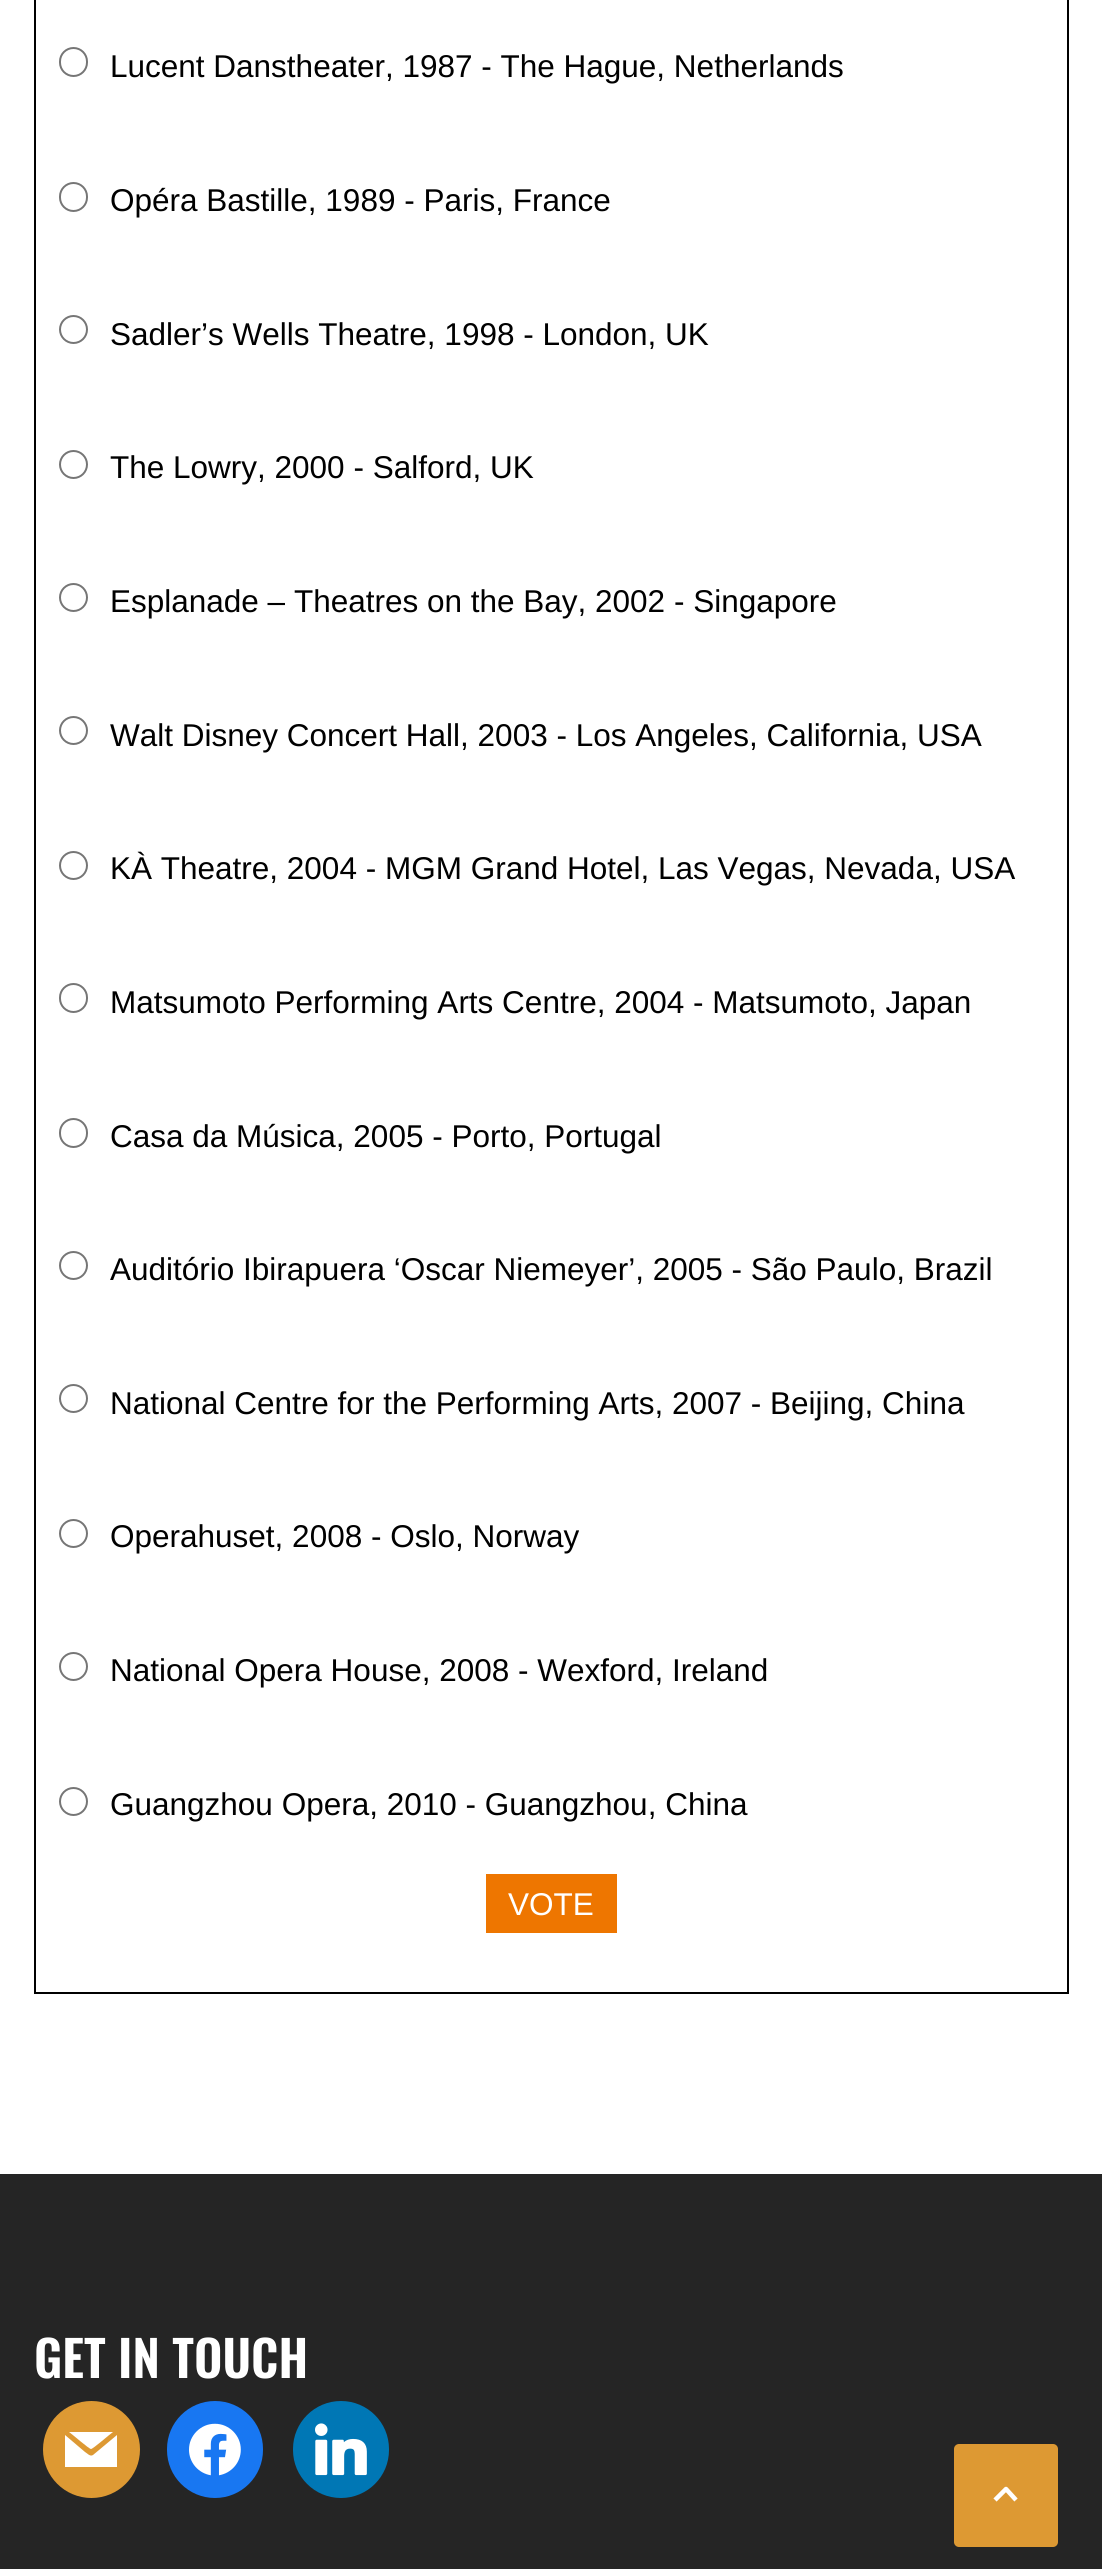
#include <cairo.h>
#include <math.h>
#include <stddef.h>

typedef struct { const char *family; double size; int italic, bold; unsigned color; } style_t;
static cairo_t *ctx;

static void ink(unsigned color) {
    cairo_set_source_rgb(ctx, (color >> 16) / 255.0, (color >> 8 & 255) / 255.0, (color & 255) / 255.0);
}

static void write(double x, double y, const char *s, const style_t *st) {
    cairo_select_font_face(ctx, st->family, st->italic ? CAIRO_FONT_SLANT_ITALIC : CAIRO_FONT_SLANT_NORMAL,
        st->bold ? CAIRO_FONT_WEIGHT_BOLD : CAIRO_FONT_WEIGHT_NORMAL);
    cairo_set_font_size(ctx, st->size);
    ink(st->color);
    cairo_move_to(ctx, x, y);
    cairo_show_text(ctx, s);
}

static void block(double x, double y, double w, double h, unsigned color) {
    ink(color);
    cairo_rectangle(ctx, x, y, w, h);
    cairo_fill(ctx);
}

static void round_path(double x, double y, double w, double h, double r) {
    cairo_new_sub_path(ctx);
    cairo_arc(ctx, x + w - r, y + h - r, r, 0, M_PI / 2);
    cairo_arc(ctx, x + r, y + h - r, r, M_PI / 2, M_PI);
    cairo_arc(ctx, x + r, y + r, r, M_PI, 1.5 * M_PI);
    cairo_arc(ctx, x + w - r, y + r, r, 1.5 * M_PI, 2 * M_PI);
    cairo_close_path(ctx);
}

static void paste(const char *path, double x, double y, double w, double h) {
    cairo_surface_t *image = cairo_image_surface_create_from_png(path);
    cairo_save(ctx);
    cairo_set_source_surface(ctx, image, x, y);
    cairo_rectangle(ctx, x, y, w, h);
    cairo_fill(ctx);
    cairo_restore(ctx);
    cairo_surface_destroy(image);
}

static const style_t s1 = {"Liberation Sans", 31.5, 0, 0, 0x000000};
static const style_t s2 = {"Liberation Sans", 31.5, 0, 0, 0xffffff};
static const style_t s3 = {"Oswald SemiBold", 49.5, 0, 0, 0xffffff};

int main(void) {
    cairo_surface_t *surface = cairo_image_surface_create(CAIRO_FORMAT_RGB24, 1102, 2569);
    ctx = cairo_create(surface);
    cairo_font_options_t *options = cairo_font_options_create();
    cairo_font_options_set_hint_metrics(options, CAIRO_HINT_METRICS_OFF);
    cairo_font_options_set_hint_style(options, CAIRO_HINT_STYLE_NONE);
    cairo_set_font_options(ctx, options);
    cairo_set_miter_limit(ctx, 4);
    ink(0xffffff);
    cairo_paint(ctx);
    cairo_rectangle(ctx, 35, -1, 1033, 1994);
    ink(0x000000);
    cairo_stroke(ctx);
    round_path(60, 48, 27, 28, 13.5);
    ink(0x767676);
    cairo_stroke(ctx);
    write(110, 77, "Lucent Danstheater, 1987 - The Hague, Netherlands", &s1);
    round_path(60, 183, 27, 28, 13.5);
    ink(0x767676);
    cairo_stroke(ctx);
    write(110, 211, "Opéra Bastille, 1989 - Paris, France", &s1);
    cairo_new_path(ctx);
    cairo_arc(ctx, 73.5, 329.5, 13.5, 0, 2 * M_PI);
    ink(0x767676);
    cairo_stroke(ctx);
    write(110, 345, "Sadler’s Wells Theatre, 1998 - London, UK", &s1);
    cairo_new_path(ctx);
    cairo_arc(ctx, 73.5, 464.5, 13.5, 0, 2 * M_PI);
    ink(0x767676);
    cairo_stroke(ctx);
    write(110, 478, "The Lowry, 2000 - Salford, UK", &s1);
    cairo_new_path(ctx);
    cairo_arc(ctx, 73.5, 597.5, 13.5, 0, 2 * M_PI);
    ink(0x767676);
    cairo_stroke(ctx);
    write(110, 612, "Esplanade – Theatres on the Bay, 2002 - Singapore", &s1);
    cairo_new_path(ctx);
    cairo_arc(ctx, 73.5, 730.5, 13.5, 0, 2 * M_PI);
    ink(0x767676);
    cairo_stroke(ctx);
    write(110, 746, "Walt Disney Concert Hall, 2003 - Los Angeles, California, USA", &s1);
    cairo_new_path(ctx);
    cairo_arc(ctx, 73.5, 865.5, 13.5, 0, 2 * M_PI);
    ink(0x767676);
    cairo_stroke(ctx);
    write(110, 879, "KÀ Theatre, 2004 - MGM Grand Hotel, Las Vegas, Nevada, USA", &s1);
    round_path(60, 984, 27, 28, 13.5);
    ink(0x767676);
    cairo_stroke(ctx);
    write(110, 1013, "Matsumoto Performing Arts Centre, 2004 - Matsumoto, Japan", &s1);
    round_path(60, 1119, 27, 28, 13.5);
    ink(0x767676);
    cairo_stroke(ctx);
    write(110, 1147, "Casa da Música, 2005 - Porto, Portugal", &s1);
    cairo_new_path(ctx);
    cairo_arc(ctx, 73.5, 1265.5, 13.5, 0, 2 * M_PI);
    ink(0x767676);
    cairo_stroke(ctx);
    write(110, 1280, "Auditório Ibirapuera ‘Oscar Niemeyer’, 2005 - São Paulo, Brazil", &s1);
    cairo_new_path(ctx);
    cairo_arc(ctx, 73.5, 1398.5, 13.5, 0, 2 * M_PI);
    ink(0x767676);
    cairo_stroke(ctx);
    write(110, 1414, "National Centre for the Performing Arts, 2007 - Beijing, China", &s1);
    cairo_new_path(ctx);
    cairo_arc(ctx, 73.5, 1533.5, 13.5, 0, 2 * M_PI);
    ink(0x767676);
    cairo_stroke(ctx);
    write(110, 1547, "Operahuset, 2008 - Oslo, Norway", &s1);
    cairo_new_path(ctx);
    cairo_arc(ctx, 73.5, 1666.5, 13.5, 0, 2 * M_PI);
    ink(0x767676);
    cairo_stroke(ctx);
    write(110, 1681, "National Opera House, 2008 - Wexford, Ireland", &s1);
    cairo_new_path(ctx);
    cairo_arc(ctx, 73.5, 1801.5, 13.5, 0, 2 * M_PI);
    ink(0x767676);
    cairo_stroke(ctx);
    write(110, 1815, "Guangzhou Opera, 2010 - Guangzhou, China", &s1);
    block(486, 1874, 131, 59, 0xee7600);
    write(508, 1915, "VOTE", &s2);
    block(0, 2174, 1102, 395, 0x252525);
    write(34, 2378, "GET IN TOUCH", &s3);
    ink(0xdd9933);
    cairo_new_path(ctx);
    cairo_arc(ctx, 91.5, 2449.5, 48.5, 0, 2 * M_PI);
    cairo_fill(ctx);
    ink(0xffffff);
    cairo_new_path(ctx);
    cairo_move_to(ctx, 93, 2455);
    cairo_curve_to(ctx, 90, 2457, 87, 2453, 85, 2452);
    cairo_line_to(ctx, 65, 2435);
    cairo_line_to(ctx, 65, 2467);
    cairo_line_to(ctx, 117, 2467);
    cairo_line_to(ctx, 117, 2435);
    cairo_close_path(ctx);
    cairo_move_to(ctx, 91, 2449);
    cairo_curve_to(ctx, 93, 2449, 110, 2434, 113, 2432);
    cairo_line_to(ctx, 69, 2432);
    cairo_curve_to(ctx, 72, 2434, 89, 2449, 91, 2449);
    cairo_close_path(ctx);
    cairo_fill(ctx);
    ink(0x1877f2);
    round_path(167, 2401, 96, 97, 48);
    cairo_fill(ctx);
    paste("pic1.png", 189, 2423, 52, 53);
    ink(0x0077b5);
    round_path(293, 2401, 96, 97, 48);
    cairo_fill(ctx);
    paste("pic2.png", 315, 2423, 52, 53);
    ink(0xdd9933);
    round_path(954, 2444, 104, 103, 5);
    cairo_fill(ctx);
    cairo_new_path(ctx);
    cairo_move_to(ctx, 995, 2500);
    cairo_line_to(ctx, 1006, 2489);
    cairo_line_to(ctx, 1016, 2500);
    ink(0xffffff);
    cairo_set_line_width(ctx, 4.5);
    cairo_set_line_join(ctx, CAIRO_LINE_JOIN_ROUND);
    cairo_stroke(ctx);
    cairo_surface_write_to_png(surface, "screenshot.png");
    cairo_font_options_destroy(options);
    cairo_destroy(ctx);
    cairo_surface_destroy(surface);
    return 0;
}
